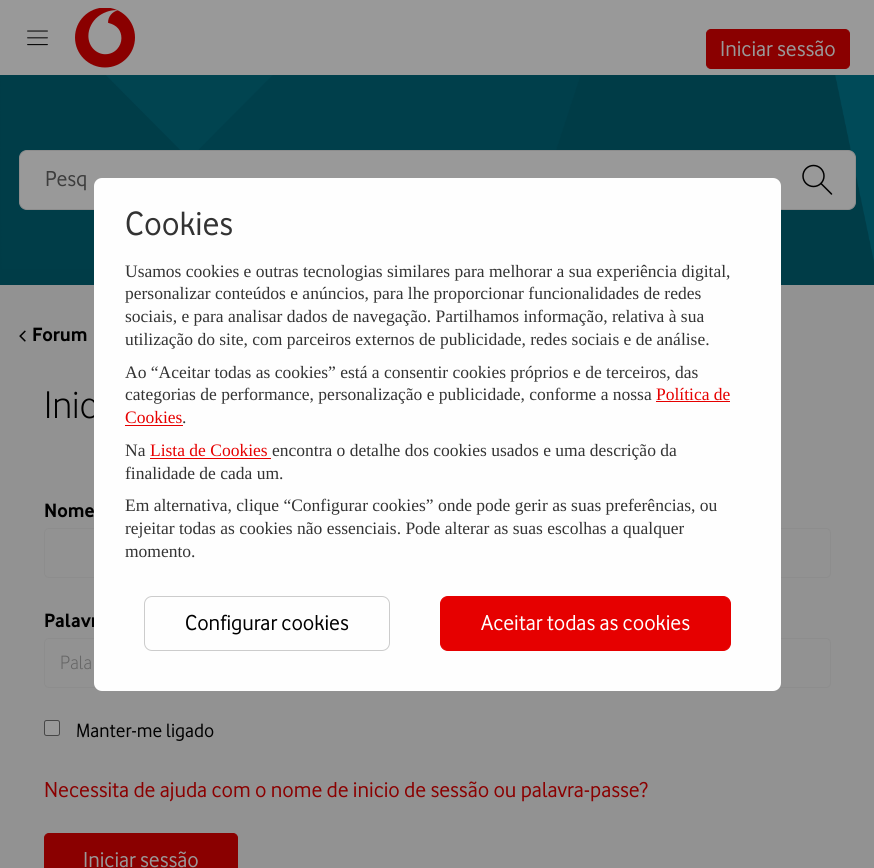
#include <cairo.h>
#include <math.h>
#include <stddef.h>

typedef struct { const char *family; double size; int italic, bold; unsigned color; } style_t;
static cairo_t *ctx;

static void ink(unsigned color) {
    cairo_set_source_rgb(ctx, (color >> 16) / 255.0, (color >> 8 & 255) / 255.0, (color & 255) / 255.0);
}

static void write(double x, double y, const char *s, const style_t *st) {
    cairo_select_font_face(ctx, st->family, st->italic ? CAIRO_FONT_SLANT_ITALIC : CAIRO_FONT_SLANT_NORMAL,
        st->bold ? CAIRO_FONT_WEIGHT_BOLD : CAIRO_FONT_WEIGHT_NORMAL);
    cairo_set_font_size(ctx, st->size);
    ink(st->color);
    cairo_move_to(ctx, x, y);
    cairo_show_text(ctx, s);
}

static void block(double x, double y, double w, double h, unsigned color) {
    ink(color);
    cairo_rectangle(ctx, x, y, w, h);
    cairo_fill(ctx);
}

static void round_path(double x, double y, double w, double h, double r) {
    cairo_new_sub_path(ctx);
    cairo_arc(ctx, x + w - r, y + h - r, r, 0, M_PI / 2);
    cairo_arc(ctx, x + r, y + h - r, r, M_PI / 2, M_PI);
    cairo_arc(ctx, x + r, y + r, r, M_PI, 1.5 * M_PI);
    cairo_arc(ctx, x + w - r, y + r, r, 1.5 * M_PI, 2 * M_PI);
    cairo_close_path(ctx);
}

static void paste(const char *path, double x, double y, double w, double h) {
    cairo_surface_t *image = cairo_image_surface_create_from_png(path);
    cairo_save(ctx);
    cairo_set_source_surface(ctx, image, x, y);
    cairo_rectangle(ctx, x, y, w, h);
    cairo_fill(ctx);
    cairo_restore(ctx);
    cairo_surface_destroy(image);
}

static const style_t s1 = {"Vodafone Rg", 22.5, 0, 0, 0x999999};
static const style_t s2 = {"Vodafone Rg", 22.5, 0, 0, 0x3d3d3d};
static const style_t s3 = {"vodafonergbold", 20, 0, 1, 0x000000};
static const style_t s4 = {"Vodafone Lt", 40, 0, 0, 0x000000};
static const style_t s5 = {"Vodafone Lt", 20, 0, 0, 0x656565};
static const style_t s6 = {"Vodafone Rg", 20, 0, 0, 0x000000};
static const style_t s7 = {"Vodafone Rg", 22.5, 0, 0, 0x8a0000};
static const style_t s8 = {"Vodafone Rg", 35, 0, 0, 0x333333};
static const style_t s9 = {"Liberation Serif", 17.5, 0, 0, 0x333333};
static const style_t s10 = {"Liberation Serif", 17.5, 0, 0, 0xe60000};
static const style_t s11 = {"Vodafone Rg", 22.5, 0, 0, 0x000000};
static const style_t s12 = {"Vodafone Rg", 22.5, 0, 0, 0xffffff};

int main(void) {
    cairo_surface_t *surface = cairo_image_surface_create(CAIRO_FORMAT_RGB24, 874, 868);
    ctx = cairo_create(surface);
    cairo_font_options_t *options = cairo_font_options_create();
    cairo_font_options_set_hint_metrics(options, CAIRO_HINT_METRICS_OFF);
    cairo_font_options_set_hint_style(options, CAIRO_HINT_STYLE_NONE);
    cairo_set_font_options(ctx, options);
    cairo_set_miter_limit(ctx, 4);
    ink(0x929292);
    cairo_paint(ctx);
    block(0, 0, 874, 75, 0x999999);
    paste("pic1.png", 27, 30, 21, 16);
    paste("pic2.png", 75, 8, 60, 60);
    ink(0x8a0000);
    round_path(706.5, 29.5, 143, 39, 4.5);
    cairo_fill_preserve(ctx);
    cairo_set_line_width(ctx, 1);
    cairo_stroke(ctx);
    write(720, 56, "Iniciar sessão", &s1);
    paste("pic3.png", 0, 75, 874, 210);
    round_path(19.5, 150.5, 836, 59, 7.5);
    cairo_fill_preserve(ctx);
    ink(0x8d8d8d);
    cairo_stroke(ctx);
    write(45, 186, "Pesq", &s2);
    cairo_new_path(ctx);
    cairo_move_to(ctx, 821, 183.5);
    cairo_line_to(ctx, 831.5, 194);
    ink(0x000000);
    cairo_set_line_width(ctx, 1.5);
    cairo_set_line_cap(ctx, CAIRO_LINE_CAP_ROUND);
    cairo_set_line_join(ctx, CAIRO_LINE_JOIN_ROUND);
    cairo_stroke(ctx);
    cairo_arc(ctx, 813.5, 176, 10.5, 0, 2 * M_PI);
    cairo_set_line_cap(ctx, CAIRO_LINE_CAP_BUTT);
    cairo_set_line_join(ctx, CAIRO_LINE_JOIN_MITER);
    cairo_stroke(ctx);
    paste("pic4.png", 19, 330, 7, 12);
    write(32, 341, "Forum", &s3);
    write(44, 418, "Inic", &s4);
    write(44, 517, "Nome", &s3);
    round_path(44.5, 528.5, 786, 49, 4.5);
    ink(0x8d8d8d);
    cairo_set_line_width(ctx, 1);
    cairo_stroke(ctx);
    write(44, 627, "Palavr", &s3);
    round_path(44.5, 638.5, 786, 49, 4.5);
    ink(0x8d8d8d);
    cairo_stroke(ctx);
    write(60, 669, "Pala", &s5);
    ink(0x999999);
    round_path(44.5, 720.5, 15, 15, 2);
    cairo_fill_preserve(ctx);
    ink(0x474747);
    cairo_stroke(ctx);
    write(76, 737, "Manter-me ligado", &s6);
    write(44, 797, "Necessita de ajuda com o nome de inicio de sessão ou palavra-passe?", &s7);
    round_path(44.5, 833.5, 193, 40, 4.5);
    cairo_fill_preserve(ctx);
    cairo_stroke(ctx);
    write(83, 867, "Iniciar sessão", &s1);
    ink(0xfefefe);
    round_path(94, 178, 687, 513, 8);
    cairo_fill(ctx);
    write(125, 235, "Cookies", &s8);
    write(125, 277, "Usamos cookies e outras tecnologias similares para melhorar a sua experiência digital,", &s9);
    write(125, 299, "personalizar conteúdos e anúncios, para lhe proporcionar funcionalidades de redes", &s9);
    write(125, 322, "sociais, e para analisar dados de navegação. Partilhamos informação, relativa à sua", &s9);
    write(125, 345, "utilização do site, com parceiros externos de publicidade, redes sociais e de análise.", &s9);
    write(125, 378, "Ao “Aceitar todas as cookies” está a consentir cookies próprios e de terceiros, das", &s9);
    write(125, 400, "categorias de performance, personalização e publicidade, conforme a nossa", &s9);
    write(656, 400, "Política de", &s10);
    block(656, 401, 74, 1, 0xe60000);
    write(125, 423, "Cookies", &s10);
    block(125, 425, 58, 1, 0xe60000);
    write(182, 423, ".", &s9);
    write(125, 456, "Na", &s9);
    write(150, 456, "Lista de Cookies", &s10);
    block(150, 458, 121, 1, 0xe60000);
    write(272, 456, "encontra o detalhe dos cookies usados e uma descrição da", &s9);
    write(125, 479, "finalidade de cada um.", &s9);
    write(125, 511, "Em alternativa, clique “Configurar cookies” onde pode gerir as suas preferências, ou", &s9);
    write(125, 534, "rejeitar todas as cookies não essenciais. Pode alterar as suas escolhas a qualquer", &s9);
    write(125, 557, "momento.", &s9);
    round_path(144.5, 596.5, 245, 54, 7.5);
    ink(0xcccccc);
    cairo_stroke(ctx);
    write(185, 630, "Configurar cookies", &s11);
    ink(0xe60000);
    round_path(440.5, 596.5, 290, 54, 7.5);
    cairo_fill_preserve(ctx);
    cairo_stroke(ctx);
    write(481, 630, "Aceitar todas as cookies", &s12);
    cairo_surface_write_to_png(surface, "screenshot.png");
    cairo_font_options_destroy(options);
    cairo_destroy(ctx);
    cairo_surface_destroy(surface);
    return 0;
}
